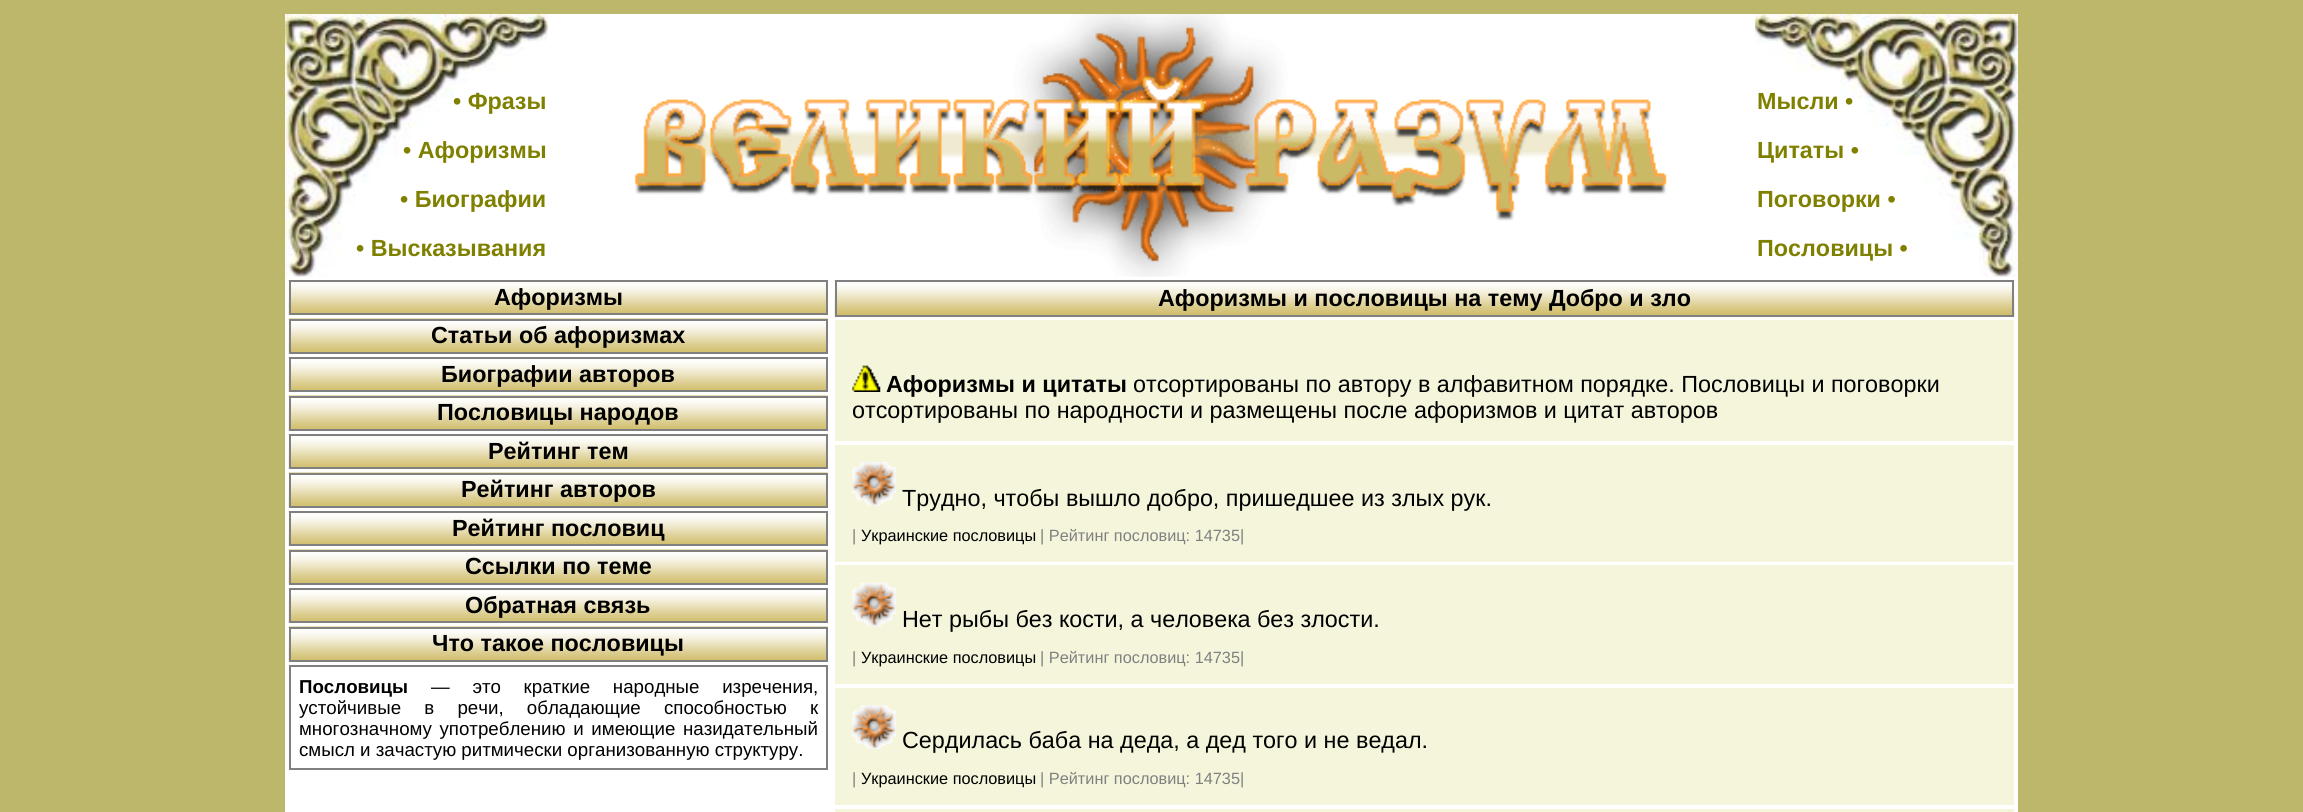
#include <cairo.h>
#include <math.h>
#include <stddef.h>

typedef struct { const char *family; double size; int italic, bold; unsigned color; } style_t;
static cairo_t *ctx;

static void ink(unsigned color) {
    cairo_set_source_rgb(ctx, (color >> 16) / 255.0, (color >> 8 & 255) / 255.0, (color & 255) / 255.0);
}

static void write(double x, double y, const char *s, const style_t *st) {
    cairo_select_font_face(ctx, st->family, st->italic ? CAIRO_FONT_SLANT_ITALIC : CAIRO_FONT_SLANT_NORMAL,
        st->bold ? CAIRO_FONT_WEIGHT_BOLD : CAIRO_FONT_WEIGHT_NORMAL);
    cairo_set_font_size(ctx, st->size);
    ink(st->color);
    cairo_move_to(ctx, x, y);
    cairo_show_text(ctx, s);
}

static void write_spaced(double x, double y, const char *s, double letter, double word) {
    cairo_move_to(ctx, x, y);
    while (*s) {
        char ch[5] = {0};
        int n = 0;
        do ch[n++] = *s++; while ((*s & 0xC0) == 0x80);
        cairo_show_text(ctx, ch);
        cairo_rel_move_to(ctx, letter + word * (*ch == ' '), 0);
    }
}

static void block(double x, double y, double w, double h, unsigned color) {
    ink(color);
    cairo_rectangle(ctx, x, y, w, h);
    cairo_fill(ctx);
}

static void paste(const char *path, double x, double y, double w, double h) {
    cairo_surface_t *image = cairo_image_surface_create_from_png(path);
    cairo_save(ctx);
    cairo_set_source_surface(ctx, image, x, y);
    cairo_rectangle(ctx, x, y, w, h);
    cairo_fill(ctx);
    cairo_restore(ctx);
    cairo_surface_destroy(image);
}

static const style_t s1 = {"Liberation Sans", 23.35, 0, 1, 0x808000};
static const style_t s2 = {"Liberation Sans", 23.35, 0, 1, 0x000000};
static const style_t s3 = {"Liberation Sans", 18.7, 0, 1, 0x000000};
static const style_t s4 = {"Liberation Sans", 18.7, 0, 0, 0x000000};
static const style_t s5 = {"Liberation Sans", 23.35, 0, 0, 0x000000};
static const style_t s6 = {"Liberation Sans", 16.3, 0, 0, 0x808080};
static const style_t s7 = {"Liberation Sans", 16.3, 0, 0, 0x000000};

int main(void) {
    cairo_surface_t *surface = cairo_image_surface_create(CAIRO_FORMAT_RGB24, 2303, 812);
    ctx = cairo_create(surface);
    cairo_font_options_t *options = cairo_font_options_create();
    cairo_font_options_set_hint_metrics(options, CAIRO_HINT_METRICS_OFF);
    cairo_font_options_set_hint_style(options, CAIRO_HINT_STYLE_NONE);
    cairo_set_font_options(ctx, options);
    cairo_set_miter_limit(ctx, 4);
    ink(0xbdb76b);
    cairo_paint(ctx);
    block(285, 14, 1733, 798, 0xffffff);
    paste("pic1.png", 285, 14, 263, 263);
    write(453, 109, "• Фразы", &s1);
    write(403, 158, "• Афоризмы", &s1);
    write(400, 207, "• Биографии", &s1);
    write(356, 256, "• Высказывания", &s1);
    paste("pic2.png", 634, 14, 1033, 263);
    paste("pic3.png", 1755, 14, 263, 263);
    write(1757, 109, "Мысли •", &s1);
    write(1757, 158, "Цитаты •", &s1);
    write(1757, 207, "Поговорки •", &s1);
    write(1757, 256, "Пословицы •", &s1);
    paste("pic4.png", 288, 280, 538, 35);
    cairo_rectangle(ctx, 290, 281, 537, 33);
    ink(0x808080);
    cairo_stroke(ctx);
    write(494, 305, "Афоризмы", &s2);
    paste("pic5.png", 288, 318, 540, 36);
    cairo_rectangle(ctx, 290, 320, 537, 33);
    ink(0x808080);
    cairo_stroke(ctx);
    write(431, 343, "Статьи об афоризмах", &s2);
    paste("pic6.png", 288, 357, 538, 35);
    cairo_rectangle(ctx, 290, 358, 537, 33);
    ink(0x808080);
    cairo_stroke(ctx);
    write(441, 382, "Биографии авторов", &s2);
    paste("pic7.png", 288, 395, 540, 36);
    cairo_rectangle(ctx, 290, 397, 537, 33);
    ink(0x808080);
    cairo_stroke(ctx);
    write(437, 420, "Пословицы народов", &s2);
    paste("pic8.png", 288, 434, 538, 35);
    cairo_rectangle(ctx, 290, 435, 537, 33);
    ink(0x808080);
    cairo_stroke(ctx);
    write(488, 459, "Рейтинг тем", &s2);
    paste("pic9.png", 288, 472, 540, 36);
    cairo_rectangle(ctx, 290, 474, 537, 33);
    ink(0x808080);
    cairo_stroke(ctx);
    write(461, 497, "Рейтинг авторов", &s2);
    paste("pic4.png", 288, 511, 538, 35);
    cairo_rectangle(ctx, 290, 512, 537, 33);
    ink(0x808080);
    cairo_stroke(ctx);
    write(452, 536, "Рейтинг пословиц", &s2);
    paste("pic5.png", 288, 549, 540, 36);
    cairo_rectangle(ctx, 290, 551, 537, 33);
    ink(0x808080);
    cairo_stroke(ctx);
    write(465, 574, "Ссылки по теме", &s2);
    paste("pic4.png", 288, 588, 538, 35);
    cairo_rectangle(ctx, 290, 589, 537, 33);
    ink(0x808080);
    cairo_stroke(ctx);
    write(465, 613, "Обратная связь", &s2);
    paste("pic10.png", 288, 626, 540, 36);
    cairo_rectangle(ctx, 290, 628, 537, 33);
    ink(0x808080);
    cairo_stroke(ctx);
    write(432, 651, "Что такое пословицы", &s2);
    cairo_rectangle(ctx, 290, 666, 537, 103);
    ink(0x808080);
    cairo_stroke(ctx);
    write(299, 693, "Пословицы", &s3);
    cairo_select_font_face(ctx, "Liberation Sans", CAIRO_FONT_SLANT_NORMAL, CAIRO_FONT_WEIGHT_NORMAL);
    write_spaced(431, 693, "— это краткие народные изречения,", 0, 17.5);
    write_spaced(299, 714, "устойчивые в речи, обладающие способностью к", 0, 18);
    write_spaced(299, 735, "многозначному употреблению и имеющие назидательный", 0, 2.5);
    write(299, 756, "смысл и зачастую ритмически организованную структуру.", &s4);
    paste("pic11.png", 834, 280, 1181, 37);
    cairo_rectangle(ctx, 836, 281, 1177, 35);
    ink(0x808080);
    cairo_stroke(ctx);
    write(1158, 306, "Афоризмы и пословицы на тему Добро и зло", &s2);
    block(835, 320, 1179, 121, 0xf5f5dc);
    paste("pic12.png", 852, 365, 29, 27);
    write(886, 392, "Aфоризмы и цитаты", &s2);
    write(1133, 392, "отсортированы по автору в алфавитном порядке. Пословицы и поговорки", &s5);
    write(852, 418, "отсортированы по народности и размещены после афоризмов и цитат авторов", &s5);
    block(835, 445, 1179, 117, 0xf5f5dc);
    paste("pic13.png", 852, 462, 44, 44);
    write(902, 506, "Трудно, чтобы вышло добро, пришедшее из злых рук.", &s5);
    write(852, 541, "|", &s6);
    write(861, 541, "Украинские пословицы", &s7);
    write(1040, 541, "| Рейтинг пословиц: 14735|", &s6);
    block(835, 565, 1179, 119, 0xf5f5dc);
    paste("pic14.png", 852, 582, 44, 45);
    write(902, 627, "Нет рыбы без кости, а человека без злости.", &s5);
    write(852, 663, "|", &s6);
    write(861, 663, "Украинские пословицы", &s7);
    write(1040, 663, "| Рейтинг пословиц: 14735|", &s6);
    block(835, 688, 1179, 117, 0xf5f5dc);
    paste("pic15.png", 852, 705, 44, 44);
    write(902, 748, "Сердилась баба на деда, а дед того и не ведал.", &s5);
    write(852, 784, "|", &s6);
    write(861, 784, "Украинские пословицы", &s7);
    write(1040, 784, "| Рейтинг пословиц: 14735|", &s6);
    block(835, 809, 1179, 3, 0xf5f5dc);
    cairo_surface_write_to_png(surface, "screenshot.png");
    cairo_font_options_destroy(options);
    cairo_destroy(ctx);
    cairo_surface_destroy(surface);
    return 0;
}
